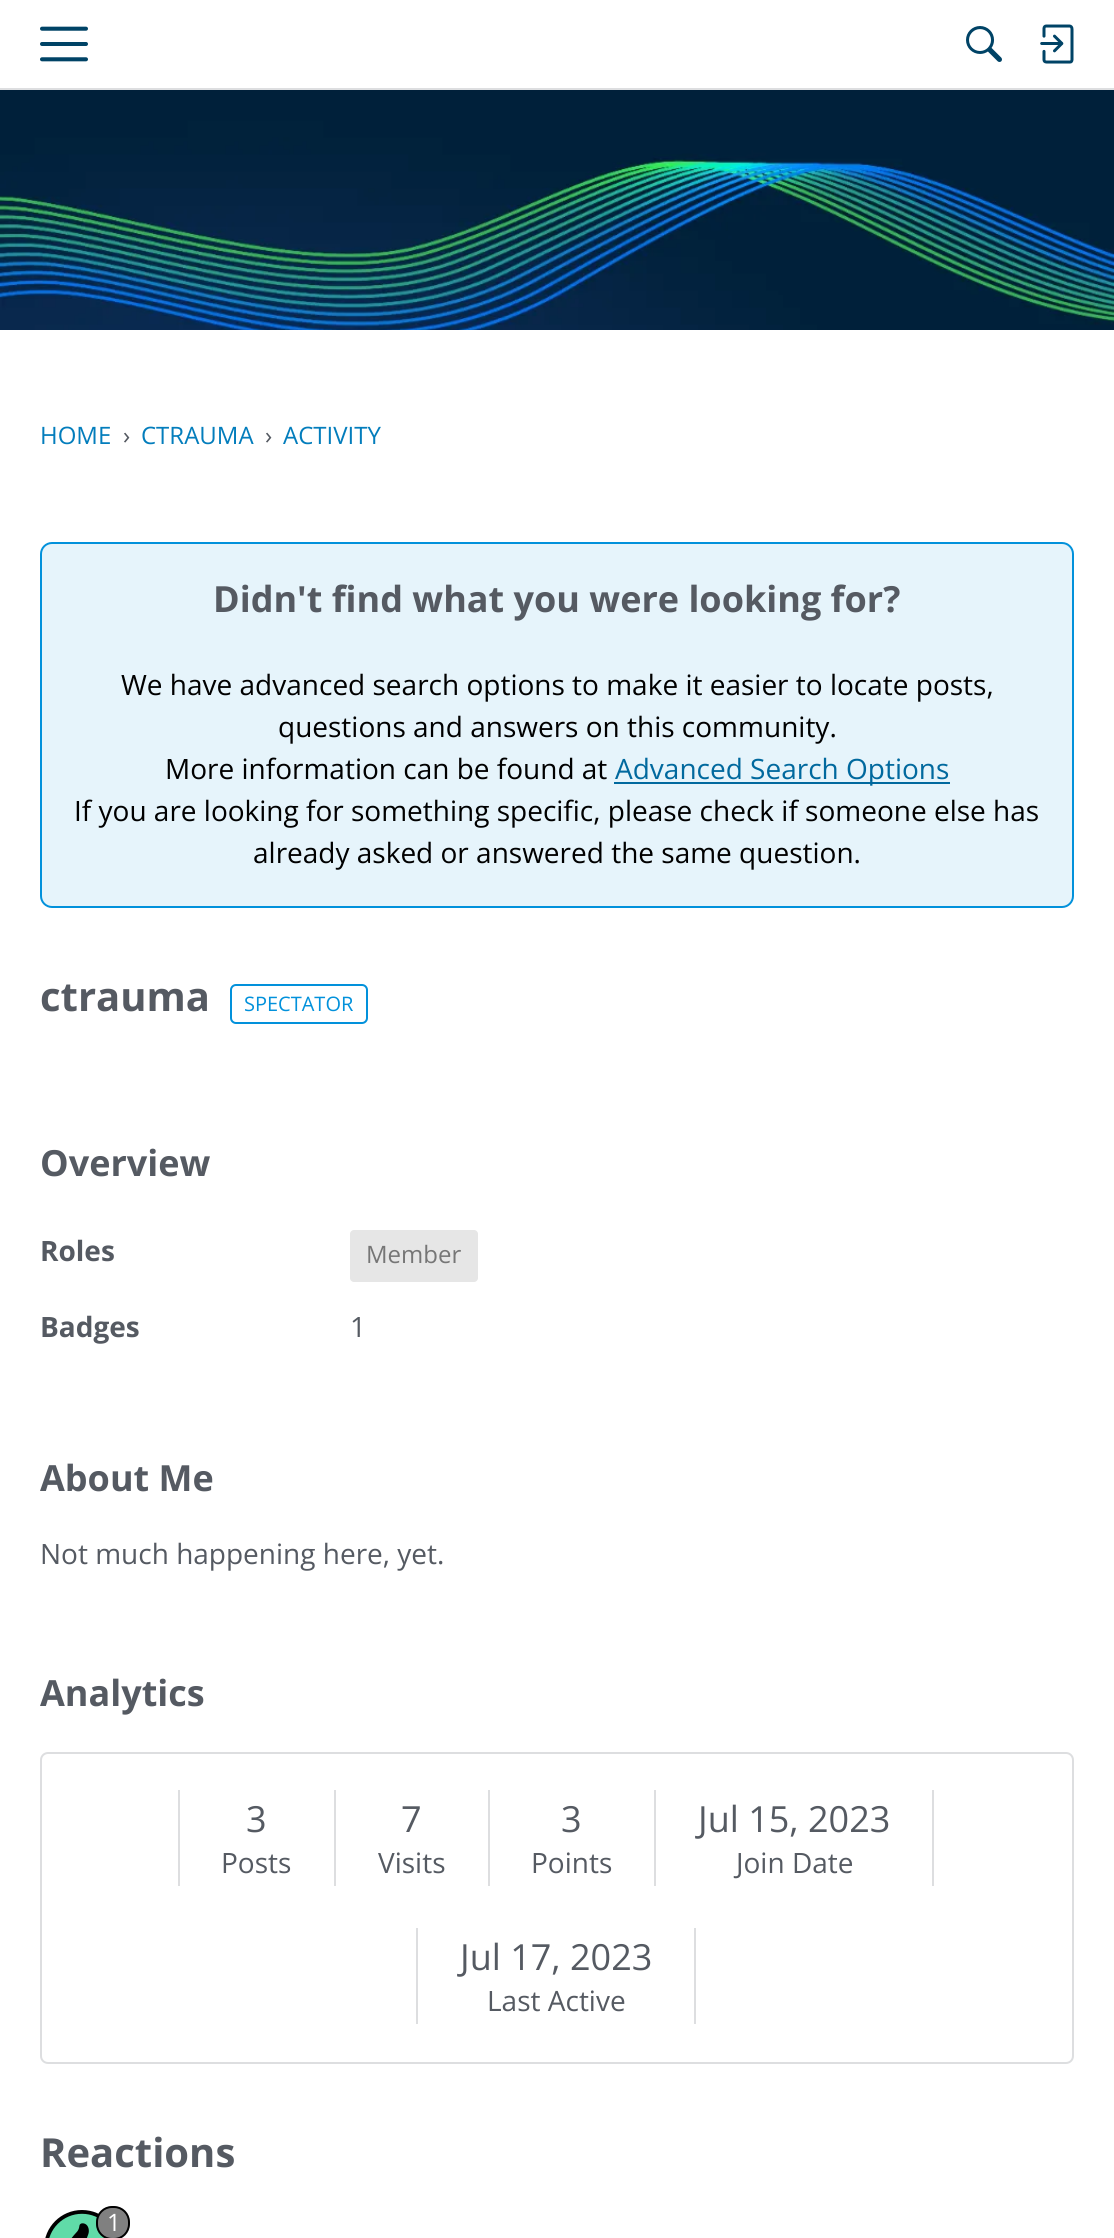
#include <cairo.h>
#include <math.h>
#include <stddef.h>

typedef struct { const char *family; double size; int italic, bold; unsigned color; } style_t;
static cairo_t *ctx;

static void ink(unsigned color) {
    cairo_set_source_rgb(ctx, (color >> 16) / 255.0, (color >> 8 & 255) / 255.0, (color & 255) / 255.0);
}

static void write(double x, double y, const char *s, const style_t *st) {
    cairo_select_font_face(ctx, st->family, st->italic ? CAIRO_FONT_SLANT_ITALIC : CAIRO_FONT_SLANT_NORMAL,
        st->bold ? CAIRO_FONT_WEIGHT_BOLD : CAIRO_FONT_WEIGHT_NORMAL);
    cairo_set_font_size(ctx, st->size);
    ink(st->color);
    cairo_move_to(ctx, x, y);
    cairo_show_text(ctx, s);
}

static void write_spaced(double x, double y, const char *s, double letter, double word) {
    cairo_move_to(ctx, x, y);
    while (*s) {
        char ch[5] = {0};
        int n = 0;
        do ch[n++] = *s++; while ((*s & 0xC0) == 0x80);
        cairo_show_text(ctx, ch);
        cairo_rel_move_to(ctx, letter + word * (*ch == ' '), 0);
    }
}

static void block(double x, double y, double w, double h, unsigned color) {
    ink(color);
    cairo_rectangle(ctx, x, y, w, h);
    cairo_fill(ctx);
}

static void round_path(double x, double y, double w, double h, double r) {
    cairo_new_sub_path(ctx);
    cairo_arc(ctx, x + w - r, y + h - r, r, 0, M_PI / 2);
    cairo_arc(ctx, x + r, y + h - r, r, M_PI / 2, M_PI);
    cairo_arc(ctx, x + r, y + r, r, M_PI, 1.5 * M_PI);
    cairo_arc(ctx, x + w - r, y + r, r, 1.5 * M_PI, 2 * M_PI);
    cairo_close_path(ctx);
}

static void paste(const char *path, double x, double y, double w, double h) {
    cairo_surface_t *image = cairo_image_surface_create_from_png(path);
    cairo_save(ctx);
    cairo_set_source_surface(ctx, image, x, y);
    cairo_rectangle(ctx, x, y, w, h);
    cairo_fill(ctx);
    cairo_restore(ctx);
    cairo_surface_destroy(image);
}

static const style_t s1 = {"Open Sans", 24, 0, 0, 0x037dbc};
static const style_t s2 = {"Open Sans", 24, 0, 0, 0x555a62};
static const style_t s3 = {"Open Sans", 36, 0, 1, 0x555a62};
static const style_t s4 = {"Open Sans", 28, 0, 0, 0x000000};
static const style_t s5 = {"Open Sans", 28, 0, 0, 0x01699e};
static const style_t s6 = {"Open Sans", 40, 0, 1, 0x555a62};
static const style_t s7 = {"Open Sans", 20, 0, 0, 0x0291db};
static const style_t s8 = {"Open Sans", 28, 0, 1, 0x555a62};
static const style_t s9 = {"Open Sans", 24, 0, 0, 0x767676};
static const style_t s10 = {"Open Sans", 28, 0, 0, 0x555a62};
static const style_t s11 = {"Open Sans", 36, 0, 0, 0x555a62};

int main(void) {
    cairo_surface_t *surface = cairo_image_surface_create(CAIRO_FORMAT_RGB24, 1114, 2238);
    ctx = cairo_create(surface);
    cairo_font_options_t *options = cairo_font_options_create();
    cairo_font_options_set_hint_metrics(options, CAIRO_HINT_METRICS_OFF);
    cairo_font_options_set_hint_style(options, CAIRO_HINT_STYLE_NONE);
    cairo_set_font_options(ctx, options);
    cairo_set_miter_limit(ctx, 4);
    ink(0xffffff);
    cairo_paint(ctx);
    block(0, 88, 1114, 2, 0xdddee0);
    paste("pic1.png", 40, 26, 48, 36);
    paste("pic2.png", 966, 26, 36, 36);
    paste("pic3.png", 1040, 24, 34, 40);
    paste("pic4.png", 0, 90, 1114, 240);
    write(40, 444, "HOME", &s1);
    write(123, 444, "›", &s2);
    write(141, 444, "CTRAUMA", &s1);
    write(265, 444, "›", &s2);
    write(283, 444, "ACTIVITY", &s1);
    ink(0xe6f4fb);
    round_path(41, 543, 1032, 364, 11);
    cairo_fill_preserve(ctx);
    ink(0x0291db);
    cairo_stroke(ctx);
    write(213, 612, "Didn't find what you were looking for?", &s3);
    write(121, 695, "We have advanced search options to make it easier to locate posts,", &s4);
    write(278, 737, "questions and answers on this community.", &s4);
    write(165, 779, "More information can be found at", &s4);
    block(614, 782, 336, 2, 0x01699e);
    write(615, 779, "Advanced Search Options", &s5);
    write(74, 821, "If you are looking for something specific, please check if someone else has", &s4);
    write(253, 863, "already asked or answered the same question.", &s4);
    write(40, 1011, "ctrauma", &s6);
    round_path(231, 985, 136, 38, 5);
    ink(0x0291db);
    cairo_stroke(ctx);
    write(244, 1011, "SPECTATOR", &s7);
    write(40, 1176, "Overview", &s3);
    write(40, 1261, "Roles", &s8);
    ink(0xe6e6e6);
    round_path(350, 1230, 128, 52, 4);
    cairo_fill(ctx);
    write(366, 1263, "Member", &s9);
    write(40, 1337, "Badges", &s8);
    write(350, 1337, "1", &s10);
    write(40, 1491, "About Me", &s3);
    write(40, 1564, "Not much happening here, yet.", &s10);
    write(40, 1706, "Analytics", &s3);
    round_path(41, 1753, 1032, 310, 7);
    ink(0xdddee0);
    cairo_stroke(ctx);
    block(334, 1790, 2, 96, 0xdddee0);
    block(178, 1790, 2, 96, 0xdddee0);
    write(246, 1832, "3", &s11);
    write(221, 1873, "Posts", &s10);
    block(488, 1790, 2, 96, 0xdddee0);
    write(401, 1832, "7", &s11);
    write(378, 1873, "Visits", &s10);
    block(654, 1790, 2, 96, 0xdddee0);
    write(561, 1832, "3", &s11);
    write(531, 1873, "Points", &s10);
    block(932, 1790, 2, 96, 0xdddee0);
    write(698, 1832, "Jul 15, 2023", &s11);
    write(736, 1873, "Join Date", &s10);
    block(694, 1928, 2, 96, 0xdddee0);
    block(416, 1928, 2, 96, 0xdddee0);
    write(460, 1970, "Jul 17, 2023", &s11);
    write(487, 2011, "Last Active", &s10);
    write(40, 2167, "Reactions", &s6);
    paste("pic5.png", 45, 2210, 60, 28);
    ink(0x808080);
    round_path(97, 2207, 32, 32, 15);
    cairo_fill_preserve(ctx);
    ink(0x000000);
    cairo_stroke(ctx);
    cairo_select_font_face(ctx, "Open Sans", CAIRO_FONT_SLANT_NORMAL, CAIRO_FONT_WEIGHT_NORMAL);
    cairo_set_font_size(ctx, 24);
    ink(0xffffff);
    write_spaced(107, 2231, "1", -2, 0);
    cairo_surface_write_to_png(surface, "screenshot.png");
    cairo_font_options_destroy(options);
    cairo_destroy(ctx);
    cairo_surface_destroy(surface);
    return 0;
}
